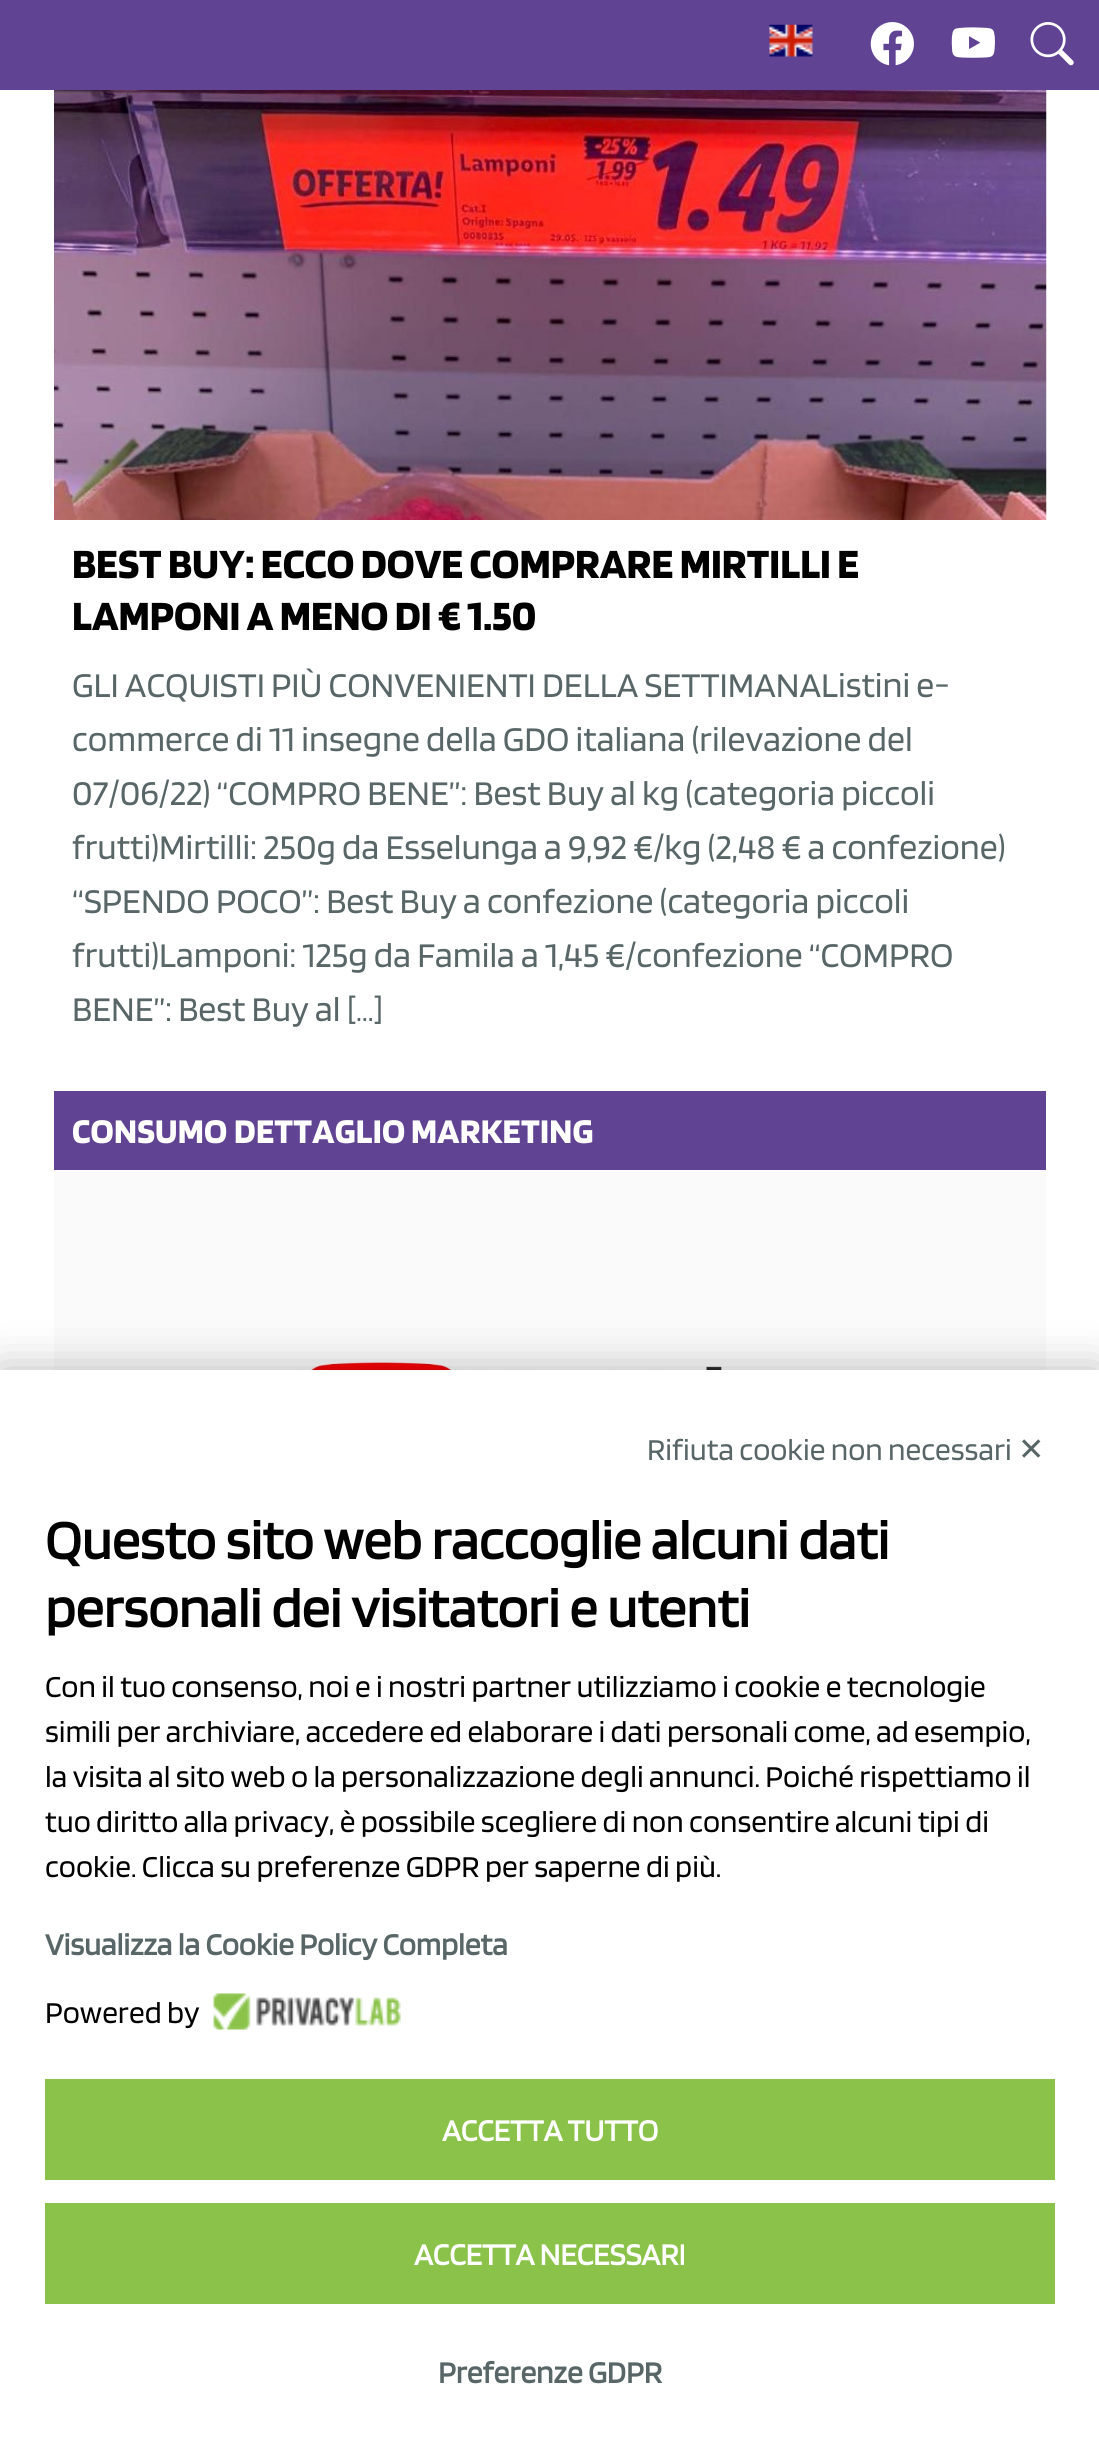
#include <cairo.h>
#include <math.h>
#include <stddef.h>

typedef struct { const char *family; double size; int italic, bold; unsigned color; } style_t;
static cairo_t *ctx;

static void ink(unsigned color) {
    cairo_set_source_rgb(ctx, (color >> 16) / 255.0, (color >> 8 & 255) / 255.0, (color & 255) / 255.0);
}

static void write(double x, double y, const char *s, const style_t *st) {
    cairo_select_font_face(ctx, st->family, st->italic ? CAIRO_FONT_SLANT_ITALIC : CAIRO_FONT_SLANT_NORMAL,
        st->bold ? CAIRO_FONT_WEIGHT_BOLD : CAIRO_FONT_WEIGHT_NORMAL);
    cairo_set_font_size(ctx, st->size);
    ink(st->color);
    cairo_move_to(ctx, x, y);
    cairo_show_text(ctx, s);
}

static void write_spaced(double x, double y, const char *s, double letter, double word) {
    cairo_move_to(ctx, x, y);
    while (*s) {
        char ch[5] = {0};
        int n = 0;
        do ch[n++] = *s++; while ((*s & 0xC0) == 0x80);
        cairo_show_text(ctx, ch);
        cairo_rel_move_to(ctx, letter + word * (*ch == ' '), 0);
    }
}

static void block(double x, double y, double w, double h, unsigned color) {
    ink(color);
    cairo_rectangle(ctx, x, y, w, h);
    cairo_fill(ctx);
}

static void round_path(double x, double y, double w, double h, double r) {
    cairo_new_sub_path(ctx);
    cairo_arc(ctx, x + w - r, y + h - r, r, 0, M_PI / 2);
    cairo_arc(ctx, x + r, y + h - r, r, M_PI / 2, M_PI);
    cairo_arc(ctx, x + r, y + r, r, M_PI, 1.5 * M_PI);
    cairo_arc(ctx, x + w - r, y + r, r, 1.5 * M_PI, 2 * M_PI);
    cairo_close_path(ctx);
}

static void blur_box(double x, double y, double w, double h, double r, double blur, double alpha) {
    cairo_push_group_with_content(ctx, CAIRO_CONTENT_ALPHA);
    cairo_set_operator(ctx, CAIRO_OPERATOR_SOURCE);
    for (int i = 15; i >= -15 && fmin(w, h) + blur * i / 3 > 0; i -= 2) {
        double e = blur * i / 6;
        cairo_set_source_rgba(ctx, 0, 0, 0, alpha * erfc((i - 1) / 8.5) / 2);
        round_path(x - e, y - e, w + 2 * e, h + 2 * e, fmax(0, fmin(r + e + blur * .6, fmin(w, h) / 2 + e)));
        cairo_fill(ctx);
    }
    cairo_pattern_t *soft = cairo_pop_group(ctx);
    cairo_mask(ctx, soft);
    cairo_pattern_destroy(soft);
}

static void paste(const char *path, double x, double y, double w, double h) {
    cairo_surface_t *image = cairo_image_surface_create_from_png(path);
    cairo_save(ctx);
    cairo_set_source_surface(ctx, image, x, y);
    cairo_rectangle(ctx, x, y, w, h);
    cairo_fill(ctx);
    cairo_restore(ctx);
    cairo_surface_destroy(image);
}

static const style_t s1 = {"Blinker", 43.25, 0, 1, 0x000000};
static const style_t s2 = {"Blinker", 36, 0, 0, 0x586667};
static const style_t s3 = {"Blinker", 31.5, 0, 0, 0x586667};
static const style_t s4 = {"DejaVu Sans", 31.5, 0, 0, 0x586667};
static const style_t s5 = {"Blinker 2", 56.25, 0, 1, 0x000000};
static const style_t s6 = {"Blinker", 31.5, 0, 0, 0x000000};
static const style_t s7 = {"Blinker 2", 31.5, 0, 1, 0x586667};
static const style_t s8 = {"Blinker 2", 31.5, 0, 1, 0xffffff};

int main(void) {
    cairo_surface_t *surface = cairo_image_surface_create(CAIRO_FORMAT_RGB24, 1099, 2438);
    ctx = cairo_create(surface);
    cairo_font_options_t *options = cairo_font_options_create();
    cairo_font_options_set_hint_metrics(options, CAIRO_HINT_METRICS_OFF);
    cairo_font_options_set_hint_style(options, CAIRO_HINT_STYLE_NONE);
    cairo_set_font_options(ctx, options);
    cairo_set_miter_limit(ctx, 4);
    ink(0xffffff);
    cairo_paint(ctx);
    block(0, 0, 1099, 90, 0x614394);
    paste("pic1.png", 769, 24, 44, 33);
    paste("pic2.png", 870, 22, 44, 44);
    paste("pic3.png", 951, 27, 44, 31);
    paste("pic4.png", 1030, 22, 44, 44);
    paste("pic5.png", 54, 90, 993, 430);
    write(72, 578, "BEST BUY: ECCO DOVE COMPRARE MIRTILLI E", &s1);
    write(72, 630, "LAMPONI A MENO DI € 1.50", &s1);
    write(72, 697, "GLI ACQUISTI PIÙ CONVENIENTI DELLA SETTIMANAListini e-", &s2);
    write(72, 751, "commerce di 11 insegne della GDO italiana (rilevazione del", &s2);
    write(72, 805, "07/06/22) “COMPRO BENE”: Best Buy al kg (categoria piccoli", &s2);
    write(72, 859, "frutti)Mirtilli: 250g da Esselunga a 9,92 €/kg (2,48 € a confezione)", &s2);
    write(72, 913, "“SPENDO POCO”: Best Buy a confezione (categoria piccoli", &s2);
    write(72, 967, "frutti)Lamponi: 125g da Famila a 1,45 €/confezione “COMPRO", &s2);
    write(72, 1021, "BENE”: Best Buy al […]", &s2);
    block(54, 1091, 992, 79, 0x614394);
    cairo_select_font_face(ctx, "Blinker", CAIRO_FONT_SLANT_NORMAL, CAIRO_FONT_WEIGHT_BOLD);
    ink(0xffffff);
    write_spaced(72, 1143, "CONSUMO", 0.25, 0);
    write_spaced(234, 1143, "DETTAGLIO", 0.25, 0);
    write_spaced(411, 1143, "MARKETING", 0.25, 0);
    paste("pic6.png", 54, 1171, 992, 199);
    ink(0x000000);
    blur_box(0, 1370, 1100, 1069, 0, 22.5, 0.27);
    block(0, 1370, 1099, 1068, 0xffffff);
    write(647, 1460, "Rifiuta cookie non necessari", &s3);
    write(1018, 1460, "✕", &s4);
    write(45, 1559, "Questo sito web raccoglie alcuni dati", &s5);
    write(45, 1627, "personali dei visitatori e utenti", &s5);
    write(45, 1697, "Con il tuo consenso, noi e i nostri partner utilizziamo i cookie e tecnologie", &s6);
    write(45, 1742, "simili per archiviare, accedere ed elaborare i dati personali come, ad esempio,", &s6);
    write(45, 1787, "la visita al sito web o la personalizzazione degli annunci. Poiché rispettiamo il", &s6);
    write(45, 1832, "tuo diritto alla privacy, è possibile scegliere di non consentire alcuni tipi di", &s6);
    write(45, 1877, "cookie. Clicca su preferenze GDPR per saperne di più.", &s6);
    write(45, 1955, "Visualizza la Cookie Policy Completa", &s7);
    write(45, 2023, "Powered by", &s6);
    paste("pic7.png", 213, 1993, 188, 37);
    block(45, 2079, 1010, 101, 0x8bc34a);
    write(442, 2141, "ACCETTA TUTTO", &s8);
    block(45, 2203, 1010, 101, 0x8bc34a);
    write(414, 2265, "ACCETTA NECESSARI", &s8);
    write(438, 2383, "Preferenze GDPR", &s7);
    cairo_surface_write_to_png(surface, "screenshot.png");
    cairo_font_options_destroy(options);
    cairo_destroy(ctx);
    cairo_surface_destroy(surface);
    return 0;
}
